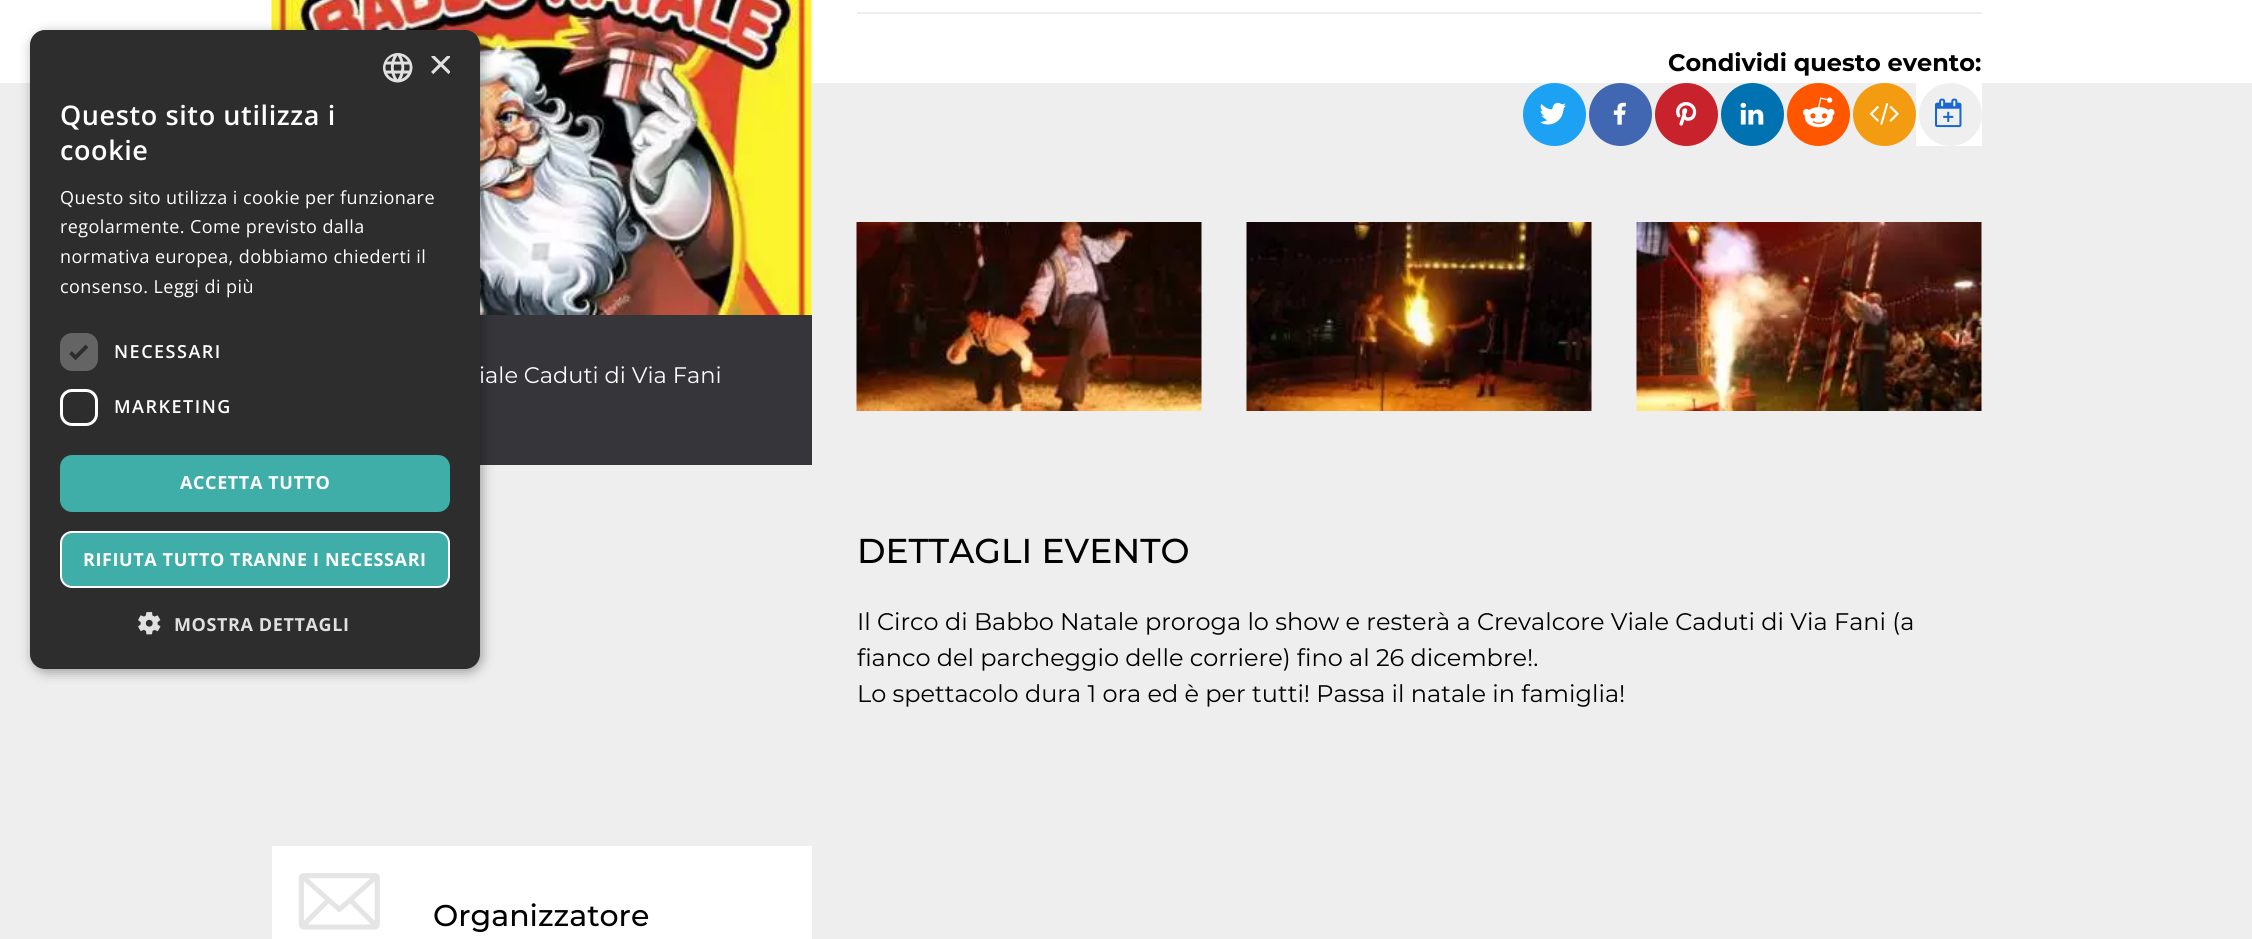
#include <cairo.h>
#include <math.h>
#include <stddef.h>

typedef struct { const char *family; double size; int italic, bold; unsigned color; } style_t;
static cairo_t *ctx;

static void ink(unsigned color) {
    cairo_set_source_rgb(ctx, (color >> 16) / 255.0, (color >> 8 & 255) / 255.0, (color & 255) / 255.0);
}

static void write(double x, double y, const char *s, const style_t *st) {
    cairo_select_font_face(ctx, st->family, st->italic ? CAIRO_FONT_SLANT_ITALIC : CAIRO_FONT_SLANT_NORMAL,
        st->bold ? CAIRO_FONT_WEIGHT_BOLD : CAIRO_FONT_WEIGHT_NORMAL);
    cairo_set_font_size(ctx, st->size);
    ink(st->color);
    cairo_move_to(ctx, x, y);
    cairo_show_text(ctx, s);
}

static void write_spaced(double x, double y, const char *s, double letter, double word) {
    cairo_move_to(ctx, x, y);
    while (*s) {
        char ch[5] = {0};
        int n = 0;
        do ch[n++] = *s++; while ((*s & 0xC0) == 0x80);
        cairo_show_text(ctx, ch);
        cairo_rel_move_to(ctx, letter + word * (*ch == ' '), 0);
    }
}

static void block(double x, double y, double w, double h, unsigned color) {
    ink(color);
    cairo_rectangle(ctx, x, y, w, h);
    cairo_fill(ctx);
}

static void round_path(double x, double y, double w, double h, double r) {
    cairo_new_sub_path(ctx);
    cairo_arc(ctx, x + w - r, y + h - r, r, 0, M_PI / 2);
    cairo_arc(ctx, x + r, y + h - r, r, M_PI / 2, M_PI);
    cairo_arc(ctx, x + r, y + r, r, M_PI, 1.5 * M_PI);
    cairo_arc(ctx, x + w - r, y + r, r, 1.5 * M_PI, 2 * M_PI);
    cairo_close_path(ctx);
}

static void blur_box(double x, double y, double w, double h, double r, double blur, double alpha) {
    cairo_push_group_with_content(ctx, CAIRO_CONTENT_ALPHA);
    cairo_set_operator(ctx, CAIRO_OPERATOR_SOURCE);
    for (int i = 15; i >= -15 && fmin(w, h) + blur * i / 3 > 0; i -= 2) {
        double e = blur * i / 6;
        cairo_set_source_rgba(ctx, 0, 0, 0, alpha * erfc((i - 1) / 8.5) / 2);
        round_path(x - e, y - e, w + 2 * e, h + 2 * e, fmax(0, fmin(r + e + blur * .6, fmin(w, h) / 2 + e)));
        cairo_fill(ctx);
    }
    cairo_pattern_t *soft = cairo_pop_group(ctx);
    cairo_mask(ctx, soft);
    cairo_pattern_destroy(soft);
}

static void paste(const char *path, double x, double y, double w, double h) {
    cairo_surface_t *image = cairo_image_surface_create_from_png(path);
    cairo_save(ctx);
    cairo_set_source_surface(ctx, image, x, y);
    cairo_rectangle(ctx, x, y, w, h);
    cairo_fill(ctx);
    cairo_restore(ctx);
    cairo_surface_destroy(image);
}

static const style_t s1 = {"Liberation Sans", 44, 0, 0, 0xe0e0e0};
static const style_t s2 = {"Montserrat", 22.5, 0, 0, 0xffffff};
static const style_t s3 = {"Montserrat Medium", 30, 0, 0, 0x000000};
static const style_t s4 = {"Montserrat", 24, 0, 1, 0x000000};
static const style_t s5 = {"Montserrat Medium", 34.5, 0, 0, 0x000000};
static const style_t s6 = {"Montserrat", 24, 0, 0, 0x000000};

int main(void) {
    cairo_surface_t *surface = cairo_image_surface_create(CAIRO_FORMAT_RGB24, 2252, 939);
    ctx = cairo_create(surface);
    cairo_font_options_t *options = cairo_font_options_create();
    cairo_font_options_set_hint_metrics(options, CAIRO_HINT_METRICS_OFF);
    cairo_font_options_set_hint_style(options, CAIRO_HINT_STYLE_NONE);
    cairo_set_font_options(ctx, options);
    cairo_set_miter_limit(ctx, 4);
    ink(0xffffff);
    cairo_paint(ctx);
    block(0, 83, 2252, 856, 0xeeeeee);
    paste("pic3.png", 271, 0, 541, 315);
    block(480, 315, 332, 150, 0x36353a);
    ink(0x000000);
    blur_box(32, 33, 450, 639, 15, 6, 0.35);
    ink(0x2d2d2d);
    round_path(30, 30, 450, 639, 15);
    cairo_fill(ctx);
    paste("pic1.png", 383, 53, 30, 30);
    cairo_save(ctx);
    cairo_rectangle(ctx, 428, 56, 22, 22);
    cairo_clip(ctx);
    write(428, 79, "×", &s1);
    cairo_restore(ctx);
    cairo_select_font_face(ctx, "Open Sans SemiBold", CAIRO_FONT_SLANT_NORMAL, CAIRO_FONT_WEIGHT_NORMAL);
    cairo_set_font_size(ctx, 27);
    ink(0xffffff);
    write_spaced(60, 125, "Questo sito utilizza i", 0.6, 0);
    write_spaced(60, 160, "cookie", 0.6, 0);
    cairo_select_font_face(ctx, "Open Sans", CAIRO_FONT_SLANT_NORMAL, CAIRO_FONT_WEIGHT_NORMAL);
    cairo_set_font_size(ctx, 18);
    write_spaced(60, 204, "Questo sito utilizza i cookie per funzionare", 0.45, 0);
    write_spaced(60, 233, "regolarmente. Come previsto dalla", 0.45, 0);
    write_spaced(60, 263, "normativa europea, dobbiamo chiederti il", 0.45, 0);
    write_spaced(60, 293, "consenso. Leggi di più", 0.45, 0);
    ink(0x646464);
    round_path(60, 333, 38, 38, 12);
    cairo_fill(ctx);
    cairo_new_path(ctx);
    cairo_move_to(ctx, 70.5, 352.5);
    cairo_line_to(ctx, 75.5, 357.5);
    cairo_line_to(ctx, 87, 346);
    ink(0x2d2d2d);
    cairo_set_line_width(ctx, 3.9);
    cairo_stroke(ctx);
    cairo_select_font_face(ctx, "Open Sans SemiBold", CAIRO_FONT_SLANT_NORMAL, CAIRO_FONT_WEIGHT_NORMAL);
    ink(0xffffff);
    write_spaced(114, 358, "NECESSARI", 1.5, 0);
    round_path(61.5, 390.5, 35, 34, 10.5);
    cairo_set_line_width(ctx, 3);
    cairo_stroke(ctx);
    write_spaced(114, 413, "MARKETING", 1.5, 0);
    ink(0x3faea8);
    round_path(60, 455, 390, 57, 12);
    cairo_fill(ctx);
    cairo_select_font_face(ctx, "Open Sans", CAIRO_FONT_SLANT_NORMAL, CAIRO_FONT_WEIGHT_BOLD);
    ink(0xffffff);
    write_spaced(180, 489, "ACCETTA TUTTO", 0.6, 0);
    ink(0x3faea8);
    round_path(61, 532, 388, 55, 11);
    cairo_fill_preserve(ctx);
    ink(0xffffff);
    cairo_set_line_width(ctx, 2);
    cairo_stroke(ctx);
    write_spaced(83, 566, "RIFIUTA TUTTO TRANNE I NECESSARI", 0.6, 0);
    paste("pic2.png", 138, 612, 23, 23);
    ink(0xe0e0e0);
    write_spaced(174, 631, "MOSTRA DETTAGLI", 0.6, 0);
    write(479, 383, "iale Caduti di Via Fani", &s2);
    block(272, 846, 540, 93, 0xffffff);
    paste("pic4.png", 298, 873, 82, 57);
    write(433, 926, "Organizzatore", &s3);
    block(857, 12, 1125, 2, 0xeeeeee);
    write(1668, 71, "Condividi questo evento:", &s4);
    ink(0x1da1f2);
    cairo_new_path(ctx);
    cairo_arc(ctx, 1554.5, 114.5, 31.5, 0, 2 * M_PI);
    cairo_fill(ctx);
    paste("pic5.png", 1540, 102, 26, 23);
    ink(0x4267b2);
    cairo_arc(ctx, 1620.5, 114.5, 31.5, 0, 2 * M_PI);
    cairo_fill(ctx);
    paste("pic6.png", 1613, 102, 13, 23);
    ink(0xc8232c);
    cairo_arc(ctx, 1686.5, 114.5, 31.5, 0, 2 * M_PI);
    cairo_fill(ctx);
    paste("pic7.png", 1676, 102, 21, 24);
    ink(0x0072b1);
    cairo_arc(ctx, 1752.5, 114.5, 31.5, 0, 2 * M_PI);
    cairo_fill(ctx);
    paste("pic8.png", 1740, 102, 24, 23);
    ink(0xff5700);
    cairo_arc(ctx, 1818.5, 114.5, 31.5, 0, 2 * M_PI);
    cairo_fill(ctx);
    paste("pic9.png", 1803, 97, 32, 31);
    ink(0xf39c11);
    cairo_arc(ctx, 1884.5, 114.5, 31.5, 0, 2 * M_PI);
    cairo_fill(ctx);
    paste("pic10.png", 1869, 103, 30, 22);
    block(1916, 83, 66, 63, 0xffffff);
    ink(0xefefef);
    cairo_arc(ctx, 1950.5, 114.5, 31.5, 0, 2 * M_PI);
    cairo_fill(ctx);
    paste("pic11.png", 1935, 98, 27, 30);
    paste("pic12.png", 856, 222, 346, 189);
    paste("pic13.png", 1246, 222, 346, 189);
    paste("pic14.png", 1636, 222, 346, 189);
    write(857, 563, "DETTAGLI EVENTO", &s5);
    write(857, 630, "Il Circo di Babbo Natale proroga lo show e resterà a Crevalcore Viale Caduti di Via Fani (a", &s6);
    write(857, 666, "fianco del parcheggio delle corriere) fino al 26 dicembre!.", &s6);
    write(857, 702, "Lo spettacolo dura 1 ora ed è per tutti! Passa il natale in famiglia!", &s6);
    cairo_surface_write_to_png(surface, "screenshot.png");
    cairo_font_options_destroy(options);
    cairo_destroy(ctx);
    cairo_surface_destroy(surface);
    return 0;
}
